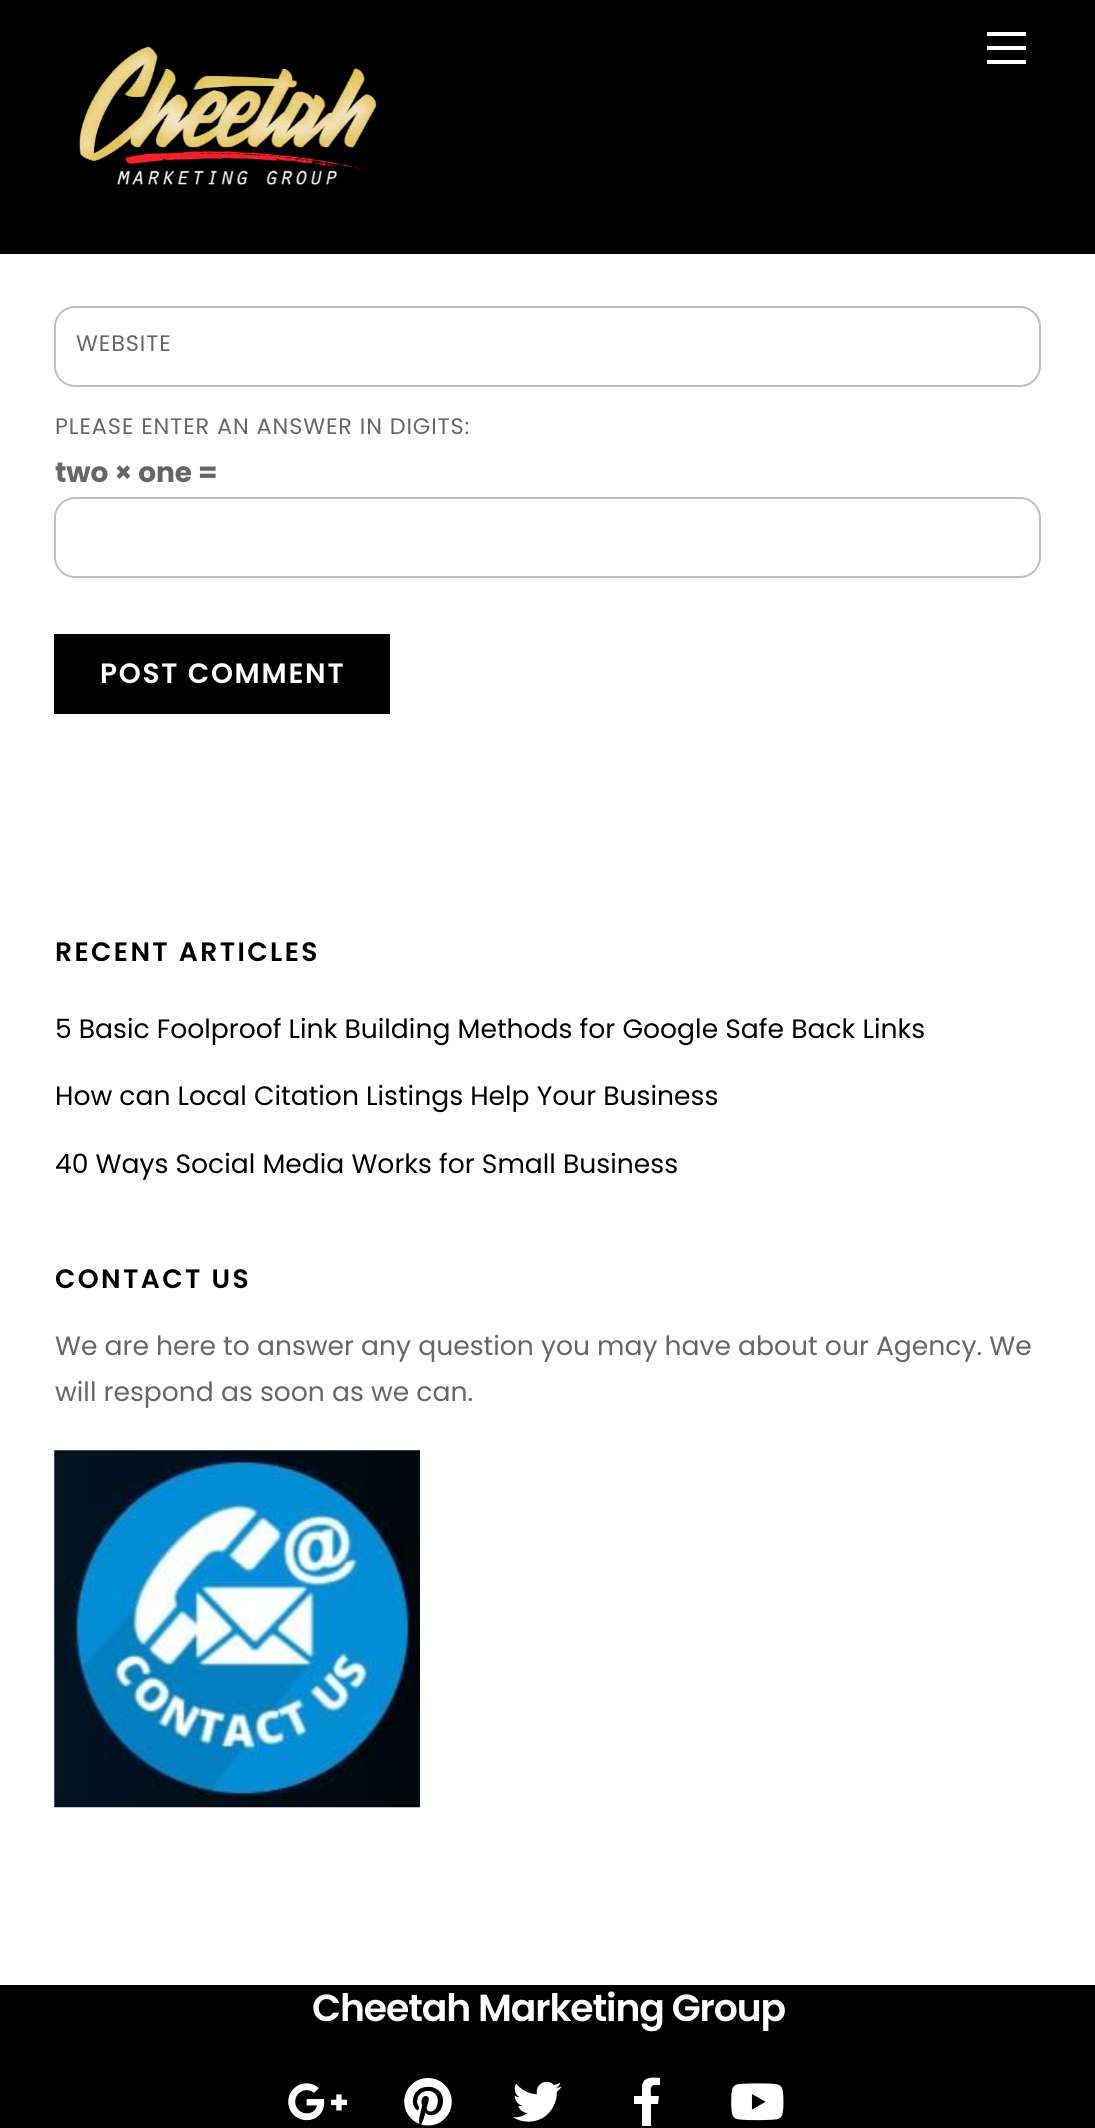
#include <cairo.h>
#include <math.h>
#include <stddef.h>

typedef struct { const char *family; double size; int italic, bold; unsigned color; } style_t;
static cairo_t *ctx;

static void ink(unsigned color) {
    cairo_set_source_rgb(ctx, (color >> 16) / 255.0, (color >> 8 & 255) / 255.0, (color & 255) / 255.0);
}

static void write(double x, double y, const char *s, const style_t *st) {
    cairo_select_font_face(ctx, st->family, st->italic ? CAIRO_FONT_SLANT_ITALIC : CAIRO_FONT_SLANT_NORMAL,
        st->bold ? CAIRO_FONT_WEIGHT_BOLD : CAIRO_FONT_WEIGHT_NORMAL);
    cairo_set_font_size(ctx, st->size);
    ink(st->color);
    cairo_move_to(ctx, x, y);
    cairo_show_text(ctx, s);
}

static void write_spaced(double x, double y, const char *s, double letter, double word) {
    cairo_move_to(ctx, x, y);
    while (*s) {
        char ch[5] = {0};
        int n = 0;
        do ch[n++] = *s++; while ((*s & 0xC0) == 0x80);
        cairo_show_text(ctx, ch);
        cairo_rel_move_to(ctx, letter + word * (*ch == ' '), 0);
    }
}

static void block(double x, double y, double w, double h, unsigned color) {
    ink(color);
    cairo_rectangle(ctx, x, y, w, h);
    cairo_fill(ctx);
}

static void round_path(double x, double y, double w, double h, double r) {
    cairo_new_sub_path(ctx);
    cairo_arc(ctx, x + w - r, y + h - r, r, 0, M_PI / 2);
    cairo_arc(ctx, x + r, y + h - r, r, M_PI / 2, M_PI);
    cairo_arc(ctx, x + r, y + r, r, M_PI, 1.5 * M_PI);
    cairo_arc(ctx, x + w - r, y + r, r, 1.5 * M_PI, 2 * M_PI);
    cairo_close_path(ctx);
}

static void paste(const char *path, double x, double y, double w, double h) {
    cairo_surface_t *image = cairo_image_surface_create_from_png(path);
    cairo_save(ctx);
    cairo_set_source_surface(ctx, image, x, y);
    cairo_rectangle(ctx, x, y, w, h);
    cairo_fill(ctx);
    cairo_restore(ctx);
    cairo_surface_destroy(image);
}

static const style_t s1 = {"Poppins", 28, 0, 1, 0x666666};
static const style_t s2 = {"Poppins", 26.6, 0, 0, 0x000000};
static const style_t s3 = {"Poppins", 26.6, 0, 0, 0x666666};

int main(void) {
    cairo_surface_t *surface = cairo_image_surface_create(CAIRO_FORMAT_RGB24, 1095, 2128);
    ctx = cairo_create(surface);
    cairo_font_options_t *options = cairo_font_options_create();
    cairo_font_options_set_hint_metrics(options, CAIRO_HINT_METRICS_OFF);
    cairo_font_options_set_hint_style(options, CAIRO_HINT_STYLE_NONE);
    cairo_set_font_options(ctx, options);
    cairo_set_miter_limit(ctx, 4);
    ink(0xffffff);
    cairo_paint(ctx);
    block(0, 0, 1095, 254, 0x000000);
    paste("pic1.png", 79, 46, 298, 139);
    block(987, 60, 39, 4, 0xffffff);
    block(987, 32, 39, 4, 0xffffff);
    block(987, 46, 39, 4, 0xffffff);
    round_path(55, 307, 985, 79, 20);
    ink(0xbfbfbf);
    cairo_stroke(ctx);
    cairo_select_font_face(ctx, "Poppins", CAIRO_FONT_SLANT_NORMAL, CAIRO_FONT_WEIGHT_NORMAL);
    cairo_set_font_size(ctx, 22.4);
    ink(0x666666);
    write_spaced(76, 351, "WEBSITE", 0.9, 0);
    write_spaced(55, 434, "PLEASE ENTER AN ANSWER IN DIGITS:", 0.9, 0);
    write(55, 482, "two × one =", &s1);
    round_path(55, 498, 985, 79, 20);
    ink(0xbfbfbf);
    cairo_stroke(ctx);
    block(54, 634, 336, 80, 0x000000);
    cairo_select_font_face(ctx, "Poppins SemiBold", CAIRO_FONT_SLANT_NORMAL, CAIRO_FONT_WEIGHT_NORMAL);
    ink(0xffffff);
    write_spaced(100, 683, "POST COMMENT", 1.75, 0);
    cairo_set_font_size(ctx, 26.6);
    ink(0x000000);
    write_spaced(55, 961, "RECENT ARTICLES", 2.4, 0);
    write(55, 1038, "5 Basic Foolproof Link Building Methods for Google Safe Back Links", &s2);
    write(55, 1105, "How can Local Citation Listings Help Your Business", &s2);
    write(55, 1173, "40 Ways Social Media Works for Small Business", &s2);
    cairo_select_font_face(ctx, "Poppins SemiBold", CAIRO_FONT_SLANT_NORMAL, CAIRO_FONT_WEIGHT_NORMAL);
    write_spaced(55, 1288, "CONTACT US", 2.4, 0);
    write(55, 1355, "We are here to answer any question you may have about our Agency. We", &s3);
    write(55, 1401, "will respond as soon as we can.", &s3);
    paste("pic2.png", 54, 1450, 366, 358);
    block(0, 1985, 1095, 143, 0x000000);
    cairo_select_font_face(ctx, "Poppins SemiBold", CAIRO_FONT_SLANT_NORMAL, CAIRO_FONT_WEIGHT_NORMAL);
    cairo_set_font_size(ctx, 37.75);
    ink(0xffffff);
    write_spaced(312, 2021, "Cheetah Marketing Group", -1.1, 0);
    paste("pic3.png", 288, 2083, 59, 38);
    paste("pic4.png", 404, 2078, 48, 48);
    paste("pic5.png", 513, 2081, 49, 41);
    cairo_new_path(ctx);
    cairo_move_to(ctx, 655, 2085);
    cairo_curve_to(ctx, 649, 2085, 651, 2092, 651, 2096);
    cairo_line_to(ctx, 659, 2096);
    cairo_line_to(ctx, 658, 2104);
    cairo_line_to(ctx, 651, 2104);
    cairo_line_to(ctx, 651, 2126);
    cairo_line_to(ctx, 642, 2126);
    cairo_line_to(ctx, 642, 2104);
    cairo_line_to(ctx, 634, 2104);
    cairo_line_to(ctx, 634, 2096);
    cairo_line_to(ctx, 642, 2096);
    cairo_line_to(ctx, 642, 2086);
    cairo_curve_to(ctx, 643, 2077, 652, 2077, 660, 2078);
    cairo_line_to(ctx, 660, 2085);
    cairo_close_path(ctx);
    cairo_fill(ctx);
    paste("pic6.png", 731, 2083, 53, 38);
    cairo_surface_write_to_png(surface, "screenshot.png");
    cairo_font_options_destroy(options);
    cairo_destroy(ctx);
    cairo_surface_destroy(surface);
    return 0;
}
